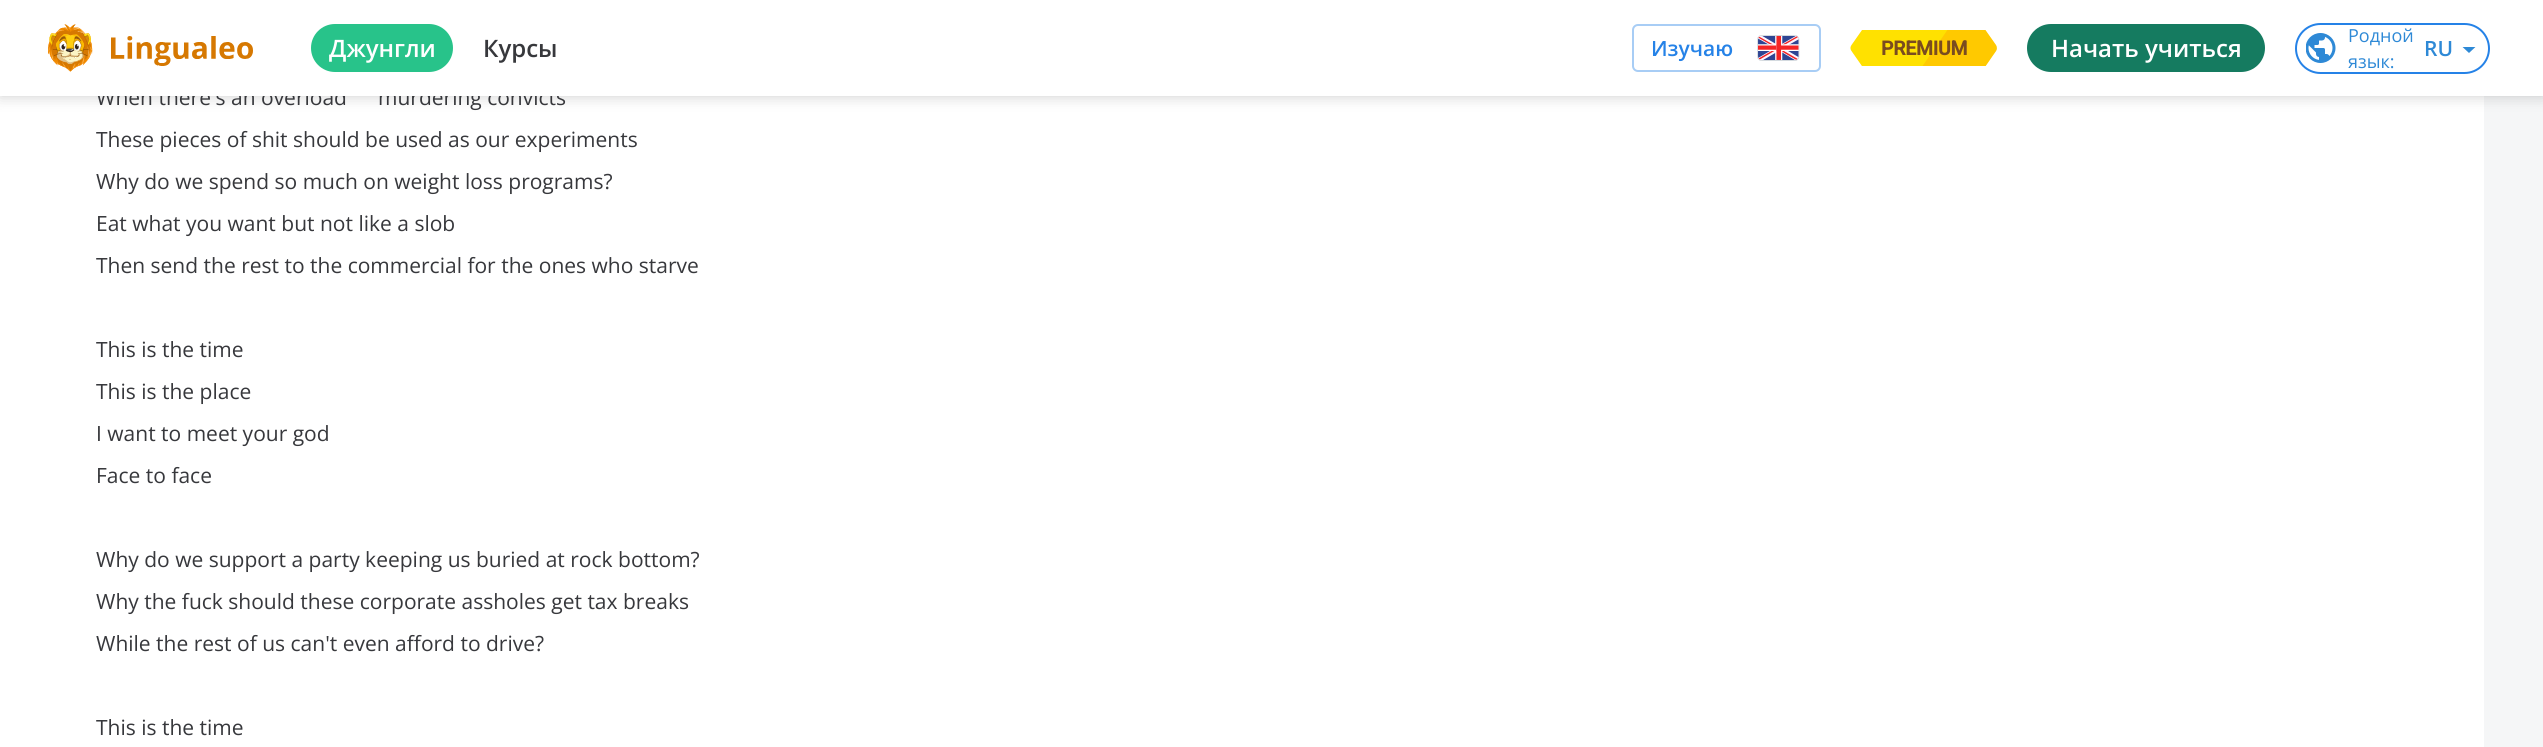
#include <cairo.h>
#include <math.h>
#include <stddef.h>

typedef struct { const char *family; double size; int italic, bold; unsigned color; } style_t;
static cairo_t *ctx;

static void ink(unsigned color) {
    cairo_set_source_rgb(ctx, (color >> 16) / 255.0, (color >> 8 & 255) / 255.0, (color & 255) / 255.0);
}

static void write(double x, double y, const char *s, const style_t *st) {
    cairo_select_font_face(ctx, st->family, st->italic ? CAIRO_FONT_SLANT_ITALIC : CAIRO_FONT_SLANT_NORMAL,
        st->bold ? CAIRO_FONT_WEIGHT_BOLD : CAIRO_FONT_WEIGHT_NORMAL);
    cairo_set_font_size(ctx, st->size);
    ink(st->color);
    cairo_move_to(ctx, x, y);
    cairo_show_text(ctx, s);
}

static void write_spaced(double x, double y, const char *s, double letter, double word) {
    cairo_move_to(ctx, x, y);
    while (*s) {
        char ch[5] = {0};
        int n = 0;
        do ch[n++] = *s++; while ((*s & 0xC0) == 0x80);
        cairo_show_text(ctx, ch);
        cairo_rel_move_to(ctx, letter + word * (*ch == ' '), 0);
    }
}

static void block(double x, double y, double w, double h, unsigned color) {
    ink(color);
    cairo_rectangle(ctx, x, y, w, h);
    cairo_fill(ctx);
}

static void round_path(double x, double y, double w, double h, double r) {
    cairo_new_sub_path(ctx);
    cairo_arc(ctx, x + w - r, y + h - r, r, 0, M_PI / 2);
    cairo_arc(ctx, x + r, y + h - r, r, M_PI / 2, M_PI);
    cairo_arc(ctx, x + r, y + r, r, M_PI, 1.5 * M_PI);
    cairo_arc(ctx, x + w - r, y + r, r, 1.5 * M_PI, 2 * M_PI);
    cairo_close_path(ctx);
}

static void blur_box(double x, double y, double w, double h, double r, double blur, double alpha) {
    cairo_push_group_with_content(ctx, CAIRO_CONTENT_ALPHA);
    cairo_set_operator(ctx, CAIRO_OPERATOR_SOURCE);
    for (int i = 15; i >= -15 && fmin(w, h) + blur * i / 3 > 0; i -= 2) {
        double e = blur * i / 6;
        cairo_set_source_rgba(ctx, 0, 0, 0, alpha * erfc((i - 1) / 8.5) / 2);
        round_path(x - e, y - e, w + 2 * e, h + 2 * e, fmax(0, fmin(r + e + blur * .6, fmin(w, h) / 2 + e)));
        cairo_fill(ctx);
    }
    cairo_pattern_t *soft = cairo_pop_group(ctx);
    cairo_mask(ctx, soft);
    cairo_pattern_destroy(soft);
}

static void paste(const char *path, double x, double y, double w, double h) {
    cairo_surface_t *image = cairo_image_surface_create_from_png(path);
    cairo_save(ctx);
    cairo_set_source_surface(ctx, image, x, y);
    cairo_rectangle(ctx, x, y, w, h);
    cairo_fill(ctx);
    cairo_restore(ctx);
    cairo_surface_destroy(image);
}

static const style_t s1 = {"Open Sans", 21, 0, 0, 0x37383c};
static const style_t s2 = {"Open Sans SemiBold", 24, 0, 0, 0xffffff};
static const style_t s3 = {"Open Sans SemiBold", 24, 0, 0, 0x37383c};
static const style_t s4 = {"Open Sans SemiBold", 21, 0, 0, 0x2582e7};
static const style_t s5 = {"Open Sans", 18, 0, 0, 0x2e89d6};
static const style_t s6 = {"Open Sans SemiBold", 21, 0, 0, 0x2e89d6};

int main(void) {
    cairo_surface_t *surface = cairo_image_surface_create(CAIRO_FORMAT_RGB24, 2543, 747);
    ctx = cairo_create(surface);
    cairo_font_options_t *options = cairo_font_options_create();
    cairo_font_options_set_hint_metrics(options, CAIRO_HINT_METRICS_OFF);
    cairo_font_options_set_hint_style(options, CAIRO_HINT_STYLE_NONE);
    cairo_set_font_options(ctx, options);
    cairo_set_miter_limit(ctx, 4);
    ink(0xffffff);
    cairo_paint(ctx);
    block(2484, 96, 59, 651, 0xf5f6f7);
    ink(0x000000);
    blur_box(0, 0, 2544, 96, 0, 7.5, 0.2);
    write(96, 105, "When there's an overload", &s1);
    write(378, 105, "murdering convicts", &s1);
    block(0, 0, 2543, 96, 0xffffff);
    paste("pic1.png", 48, 24, 205, 48);
    ink(0x28c38a);
    round_path(311, 24, 142, 48, 24);
    cairo_fill(ctx);
    write(329, 57, "Джунгли", &s2);
    write(483, 57, "Курсы", &s3);
    round_path(1633, 25, 187, 46, 5);
    ink(0xa8cdf5);
    cairo_stroke(ctx);
    write(1651, 56, "Изучаю", &s4);
    paste("pic2.png", 1757, 35, 43, 26);
    paste("pic3.png", 1850, 30, 147, 36);
    cairo_select_font_face(ctx, "Roboto", CAIRO_FONT_SLANT_NORMAL, CAIRO_FONT_WEIGHT_BOLD);
    cairo_set_font_size(ctx, 19.5);
    ink(0x7a4c20);
    write_spaced(1881, 55, "PREMIUM", -0.25, 0);
    ink(0x157b60);
    round_path(2027, 24, 238, 48, 24);
    cairo_fill(ctx);
    write(2051, 57, "Начать учиться", &s2);
    round_path(2296, 24, 193, 49, 24.5);
    ink(0x2582e7);
    cairo_stroke(ctx);
    paste("pic4.png", 2306, 33, 30, 30);
    write(2348, 42, "Родной", &s5);
    write(2348, 68, "язык:", &s5);
    write(2424, 56, "RU", &s6);
    cairo_save(ctx);
    cairo_rectangle(ctx, 2462, 47, 15, 6);
    cairo_clip(ctx);
    cairo_set_fill_rule(ctx, CAIRO_FILL_RULE_EVEN_ODD);
    cairo_new_path(ctx);
    cairo_move_to(ctx, 2461.5, 46);
    cairo_line_to(ctx, 2469, 53);
    cairo_line_to(ctx, 2476.5, 46);
    cairo_close_path(ctx);
    cairo_fill(ctx);
    cairo_restore(ctx);
    write(96, 147, "These pieces of shit should be used as our experiments", &s1);
    write(96, 189, "Why do we spend so much on weight loss programs?", &s1);
    write(96, 231, "Eat what you want but not like a slob", &s1);
    write(96, 273, "Then send the rest to the commercial for the ones who starve", &s1);
    write(96, 357, "This is the time", &s1);
    write(96, 399, "This is the place", &s1);
    write(96, 441, "I want to meet your god", &s1);
    write(96, 483, "Face to face", &s1);
    write(96, 567, "Why do we support a party keeping us buried at rock bottom?", &s1);
    write(96, 609, "Why the fuck should these corporate assholes get tax breaks", &s1);
    write(96, 651, "While the rest of us can't even afford to drive?", &s1);
    write(96, 735, "This is the time", &s1);
    cairo_surface_write_to_png(surface, "screenshot.png");
    cairo_font_options_destroy(options);
    cairo_destroy(ctx);
    cairo_surface_destroy(surface);
    return 0;
}
